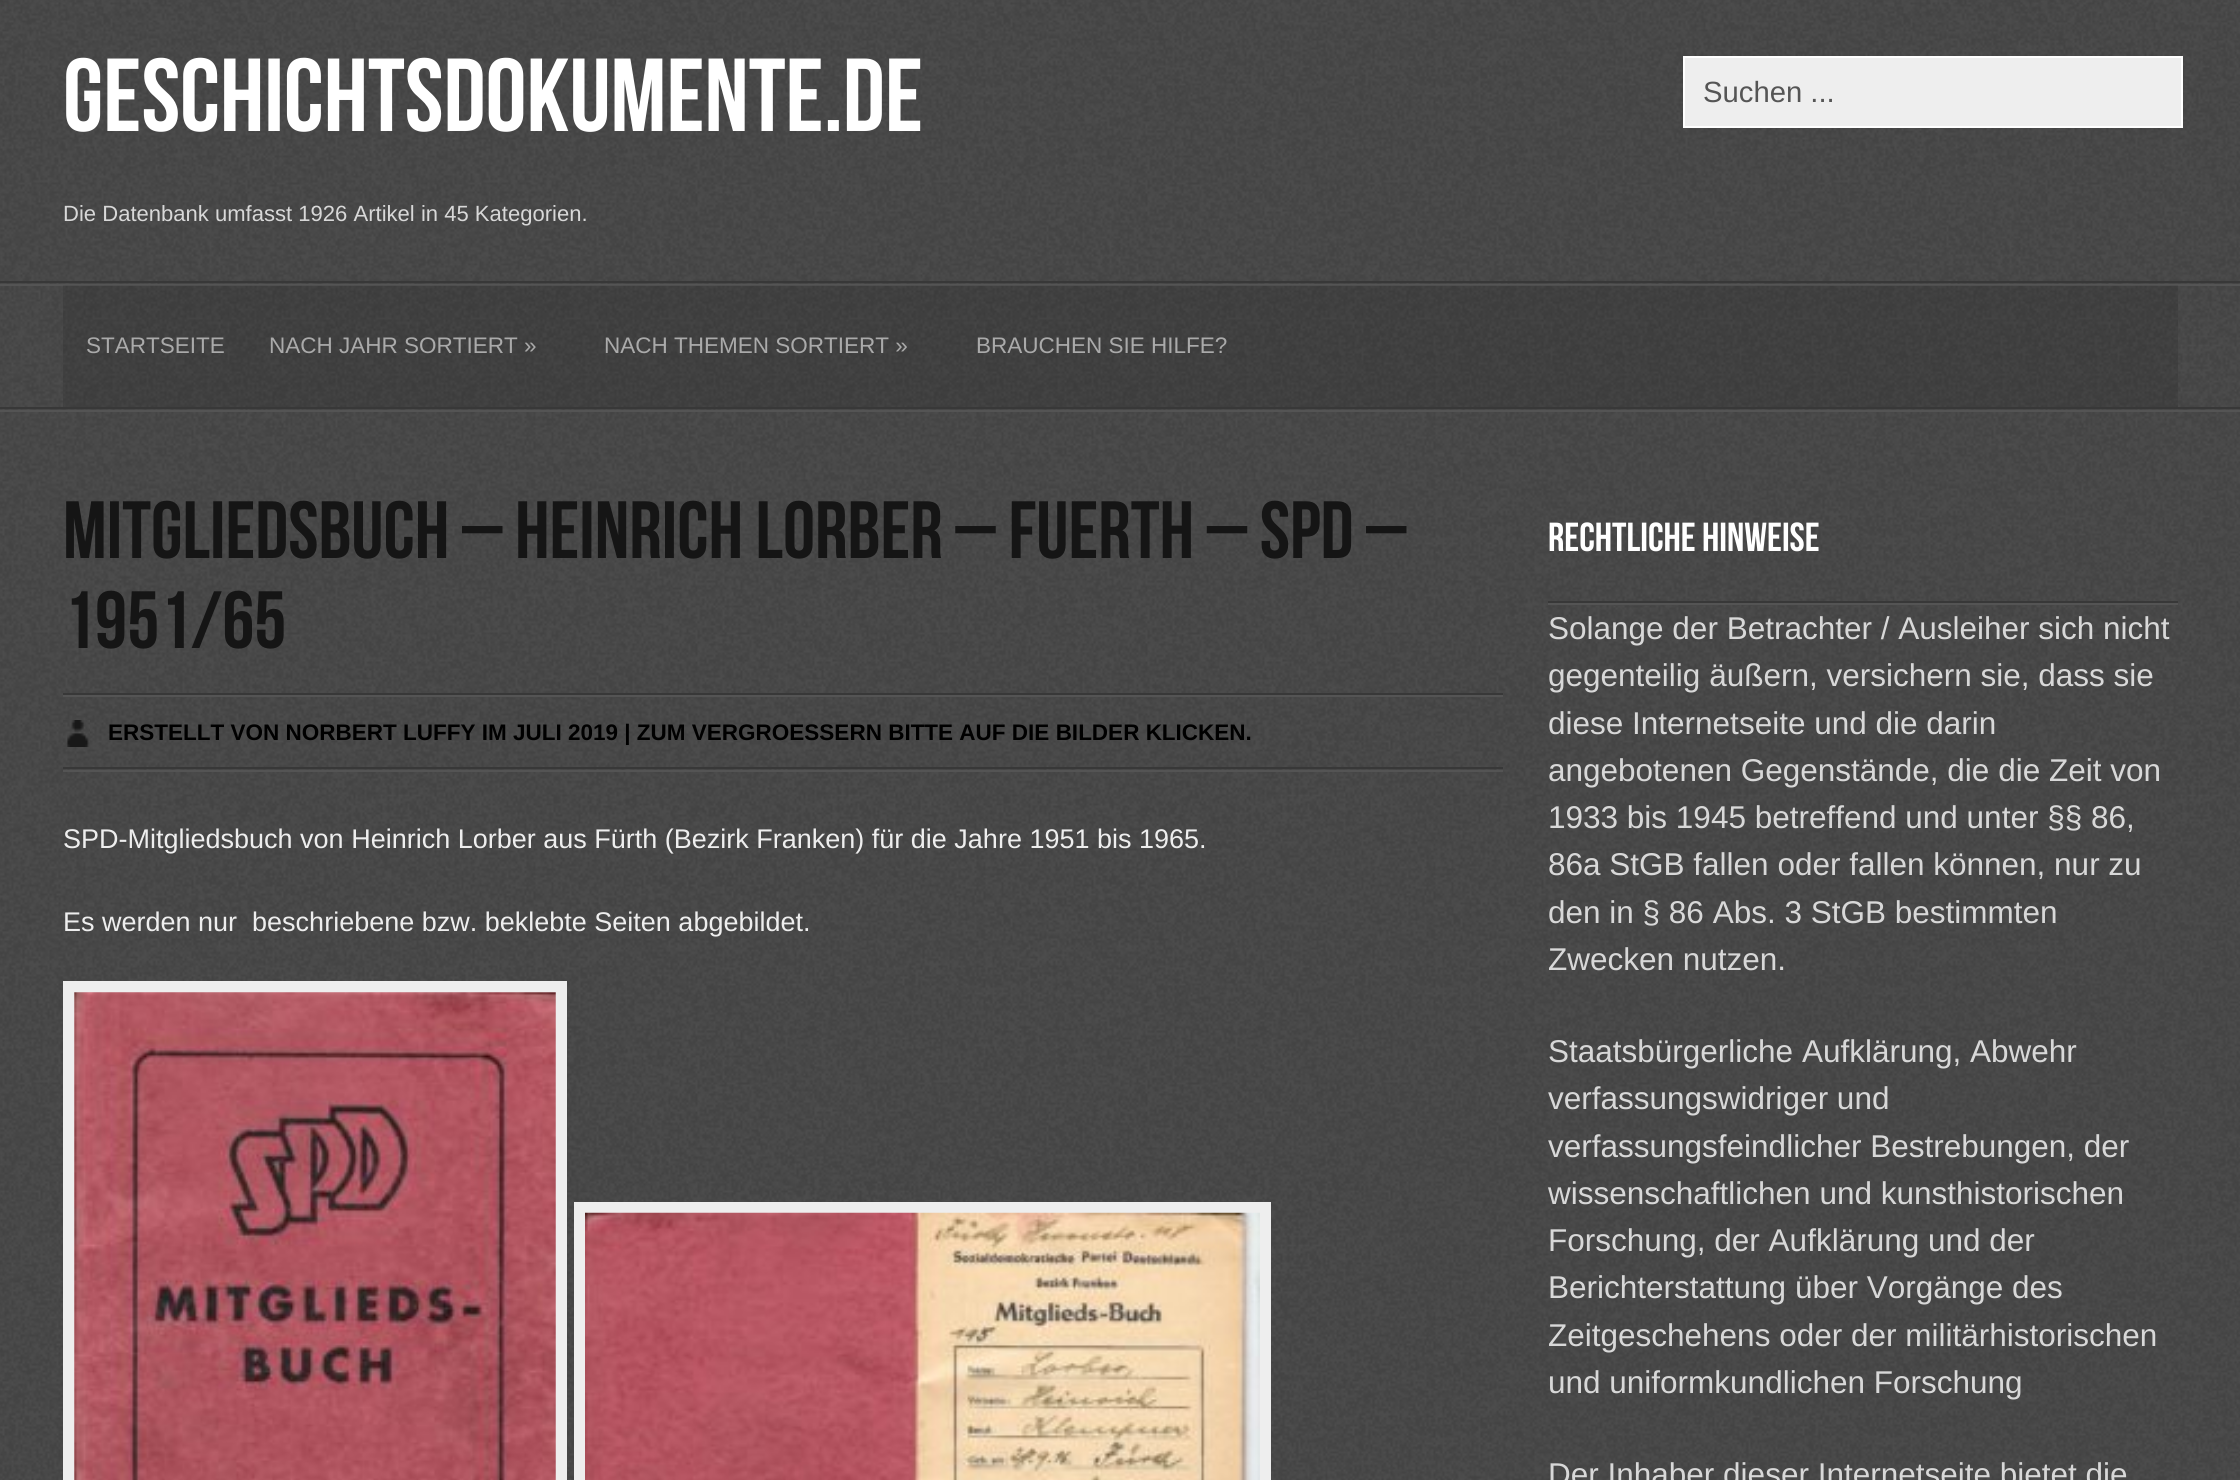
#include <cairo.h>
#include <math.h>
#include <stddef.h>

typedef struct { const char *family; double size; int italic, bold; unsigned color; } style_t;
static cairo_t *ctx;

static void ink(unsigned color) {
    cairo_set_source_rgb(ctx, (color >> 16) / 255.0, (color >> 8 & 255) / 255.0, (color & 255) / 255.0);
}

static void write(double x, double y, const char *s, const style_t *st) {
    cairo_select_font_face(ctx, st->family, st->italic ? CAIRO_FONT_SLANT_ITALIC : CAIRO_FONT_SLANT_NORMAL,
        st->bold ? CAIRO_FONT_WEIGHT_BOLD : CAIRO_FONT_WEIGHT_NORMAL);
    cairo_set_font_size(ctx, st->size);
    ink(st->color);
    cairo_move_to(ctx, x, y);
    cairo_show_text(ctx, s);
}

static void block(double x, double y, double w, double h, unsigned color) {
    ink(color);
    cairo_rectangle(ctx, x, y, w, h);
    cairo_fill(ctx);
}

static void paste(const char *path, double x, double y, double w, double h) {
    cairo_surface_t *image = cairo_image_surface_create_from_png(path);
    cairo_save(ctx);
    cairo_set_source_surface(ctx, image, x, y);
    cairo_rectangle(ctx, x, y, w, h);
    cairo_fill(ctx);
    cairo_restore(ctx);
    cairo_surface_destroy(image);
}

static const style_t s1 = {"Bebas Neue", 103.5, 0, 0, 0xffffff};
static const style_t s2 = {"Liberation Sans", 22.05, 0, 0, 0xd8d8d8};
static const style_t s3 = {"Liberation Sans", 29.25, 0, 0, 0x555555};
static const style_t s4 = {"Liberation Sans", 22.5, 0, 0, 0xaaaaaa};
static const style_t s5 = {"Bebas Neue", 81, 0, 0, 0x151515};
static const style_t s6 = {"Liberation Sans", 22.5, 0, 1, 0x000000};
static const style_t s7 = {"Liberation Sans", 27, 0, 0, 0xeeeeee};
static const style_t s8 = {"Bebas Neue", 40.5, 0, 0, 0xffffff};
static const style_t s9 = {"Liberation Sans", 31.5, 0, 0, 0xd8d8d8};

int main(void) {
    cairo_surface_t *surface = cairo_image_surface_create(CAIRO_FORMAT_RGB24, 2240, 1480);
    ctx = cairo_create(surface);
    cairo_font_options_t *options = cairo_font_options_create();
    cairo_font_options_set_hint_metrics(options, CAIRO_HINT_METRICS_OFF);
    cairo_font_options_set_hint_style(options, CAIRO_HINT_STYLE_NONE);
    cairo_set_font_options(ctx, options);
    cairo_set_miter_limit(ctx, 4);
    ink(0xffffff);
    cairo_paint(ctx);
    paste("pic1.png", 0, 0, 2240, 1480);
    write(63, 131, "Geschichtsdokumente.de", &s1);
    write(63, 221, "Die Datenbank umfasst 1926 Artikel in 45 Kategorien.", &s2);
    ink(0xeeeeee);
    cairo_rectangle(ctx, 1684, 57, 498, 70);
    cairo_fill_preserve(ctx);
    ink(0xffffff);
    cairo_stroke(ctx);
    write(1703, 102, "Suchen ...", &s3);
    block(0, 281, 2240, 2, 0x383838);
    block(0, 284, 2240, 2, 0x545454);
    paste("pic2.png", 63, 285, 2115, 122);
    write(86, 353, "STARTSEITE", &s4);
    write(269, 353, "NACH JAHR SORTIERT »", &s4);
    write(604, 353, "NACH THEMEN SORTIERT »", &s4);
    write(976, 353, "BRAUCHEN SIE HILFE?", &s4);
    block(0, 407, 2240, 2, 0x383838);
    block(0, 410, 2240, 2, 0x545454);
    write(63, 558, "Mitgliedsbuch – Heinrich Lorber – Fuerth – SPD –", &s5);
    write(63, 648, "1951/65", &s5);
    block(63, 693, 1440, 2, 0x383838);
    block(63, 695, 1440, 2, 0x545454);
    paste("pic3.png", 63, 720, 27, 27);
    write(108, 740, "ERSTELLT VON NORBERT LUFFY IM JULI 2019 | ZUM VERGROESSERN BITTE AUF DIE BILDER KLICKEN.", &s6);
    block(63, 767, 1440, 2, 0x383838);
    block(63, 770, 1440, 2, 0x545454);
    write(63, 848, "SPD-Mitgliedsbuch von Heinrich Lorber aus Fürth (Bezirk Franken) für die Jahre 1951 bis 1965.", &s7);
    write(63, 931, "Es werden nur  beschriebene bzw. beklebte Seiten abgebildet.", &s7);
    block(63, 981, 504, 499, 0xeeeeee);
    paste("pic4.png", 74, 992, 482, 488);
    block(574, 1202, 697, 278, 0xeeeeee);
    paste("pic5.png", 585, 1212, 675, 268);
    write(1548, 551, "Rechtliche Hinweise", &s8);
    block(1548, 601, 630, 2, 0x383838);
    block(1548, 603, 630, 2, 0x545454);
    write(1548, 639, "Solange der Betrachter / Ausleiher sich nicht", &s9);
    write(1548, 686, "gegenteilig äußern, versichern sie, dass sie", &s9);
    write(1548, 734, "diese Internetseite und die darin", &s9);
    write(1548, 781, "angebotenen Gegenstände, die die Zeit von", &s9);
    write(1548, 828, "1933 bis 1945 betreffend und unter §§ 86,", &s9);
    write(1548, 875, "86a StGB fallen oder fallen können, nur zu", &s9);
    write(1548, 923, "den in § 86 Abs. 3 StGB bestimmten", &s9);
    write(1548, 970, "Zwecken nutzen.", &s9);
    write(1548, 1062, "Staatsbürgerliche Aufklärung, Abwehr", &s9);
    write(1548, 1109, "verfassungswidriger und", &s9);
    write(1548, 1157, "verfassungsfeindlicher Bestrebungen, der", &s9);
    write(1548, 1204, "wissenschaftlichen und kunsthistorischen", &s9);
    write(1548, 1251, "Forschung, der Aufklärung und der", &s9);
    write(1548, 1298, "Berichterstattung über Vorgänge des", &s9);
    write(1548, 1346, "Zeitgeschehens oder der militärhistorischen", &s9);
    write(1548, 1393, "und uniformkundlichen Forschung", &s9);
    write(1548, 1485, "Der Inhaber dieser Internetseite bietet die", &s9);
    cairo_surface_write_to_png(surface, "screenshot.png");
    cairo_font_options_destroy(options);
    cairo_destroy(ctx);
    cairo_surface_destroy(surface);
    return 0;
}
